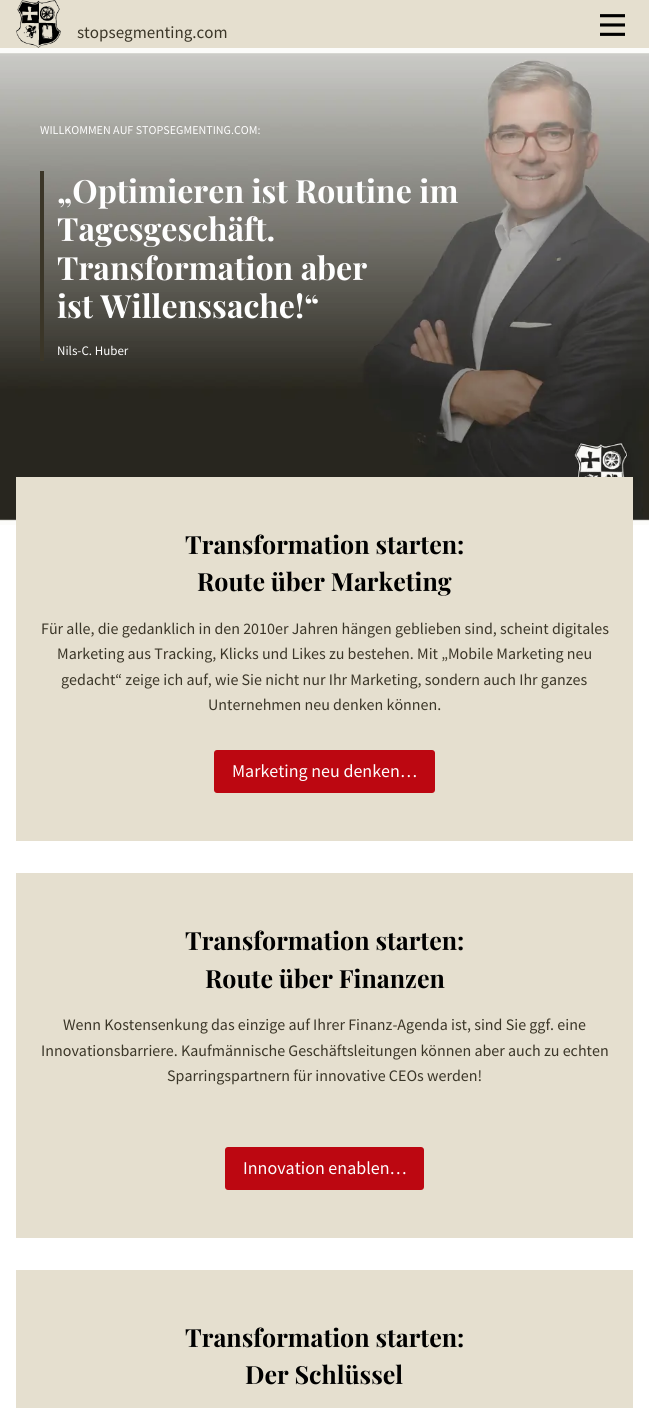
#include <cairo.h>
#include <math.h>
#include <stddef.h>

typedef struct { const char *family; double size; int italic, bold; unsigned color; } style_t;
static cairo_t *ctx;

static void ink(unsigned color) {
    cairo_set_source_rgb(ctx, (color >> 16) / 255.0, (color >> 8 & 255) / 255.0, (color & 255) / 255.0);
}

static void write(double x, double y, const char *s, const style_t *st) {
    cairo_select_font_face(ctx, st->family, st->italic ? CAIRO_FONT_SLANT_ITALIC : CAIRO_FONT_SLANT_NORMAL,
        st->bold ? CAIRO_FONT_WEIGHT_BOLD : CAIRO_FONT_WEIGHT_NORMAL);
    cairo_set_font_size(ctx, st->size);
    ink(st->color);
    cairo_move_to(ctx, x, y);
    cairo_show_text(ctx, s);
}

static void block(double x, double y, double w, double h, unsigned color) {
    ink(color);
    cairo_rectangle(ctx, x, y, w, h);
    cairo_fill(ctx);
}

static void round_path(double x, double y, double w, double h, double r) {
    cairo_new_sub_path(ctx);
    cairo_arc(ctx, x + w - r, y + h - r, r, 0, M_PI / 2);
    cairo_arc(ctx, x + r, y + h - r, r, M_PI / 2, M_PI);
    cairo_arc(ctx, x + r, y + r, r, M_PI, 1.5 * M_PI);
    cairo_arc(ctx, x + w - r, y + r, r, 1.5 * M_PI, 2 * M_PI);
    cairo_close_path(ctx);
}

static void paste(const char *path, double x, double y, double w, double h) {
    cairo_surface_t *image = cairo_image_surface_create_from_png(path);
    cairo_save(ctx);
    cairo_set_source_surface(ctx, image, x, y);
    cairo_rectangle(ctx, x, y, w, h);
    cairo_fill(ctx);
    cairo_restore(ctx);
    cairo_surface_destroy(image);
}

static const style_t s1 = {"Source Sans Pro", 17, 0, 0, 0x3b3628};
static const style_t s2 = {"Source Sans Pro", 12, 0, 0, 0xfefefe};
static const style_t s3 = {"Playfair Display", 32, 0, 1, 0xfefefe};
static const style_t s4 = {"Source Sans Pro", 13, 0, 0, 0xfefefe};
static const style_t s5 = {"Playfair Display", 25, 0, 1, 0x000000};
static const style_t s6 = {"Source Sans Pro", 16, 0, 0, 0x3b3628};
static const style_t s7 = {"Source Sans Pro", 18, 0, 0, 0xfefefe};

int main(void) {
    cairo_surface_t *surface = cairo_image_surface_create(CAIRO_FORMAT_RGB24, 649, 1408);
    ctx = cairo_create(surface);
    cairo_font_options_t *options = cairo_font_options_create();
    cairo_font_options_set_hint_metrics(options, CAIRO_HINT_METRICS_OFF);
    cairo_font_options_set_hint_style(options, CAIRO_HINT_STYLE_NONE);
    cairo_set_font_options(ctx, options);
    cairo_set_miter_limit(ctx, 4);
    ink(0xffffff);
    cairo_paint(ctx);
    block(0, 48, 649, 477, 0xfcfcfa);
    block(0, 0, 649, 48, 0xe5dfcf);
    paste("pic1.png", 16, 0, 45, 48);
    write(77, 38, "stopsegmenting.com", &s1);
    paste("pic2.png", 600, 14, 25, 22);
    paste("pic3.png", 0, 53, 649, 468);
    write(40, 134, "WILLKOMMEN AUF STOPSEGMENTING.COM:", &s2);
    block(40, 171, 4, 190, 0x3b3628);
    write(57, 203, "„Optimieren ist Routine im", &s3);
    write(57, 241, "Tagesgeschäft.", &s3);
    write(57, 280, "Transformation aber", &s3);
    write(57, 318, "ist Willenssache!“", &s3);
    write(57, 355, "Nils-C. Huber", &s4);
    block(16, 477, 617, 364, 0xe5dfcf);
    write(185, 554, "Transformation starten:", &s5);
    write(197, 591, "Route über Marketing", &s5);
    write(41, 634, "Für alle, die gedanklich in den 2010er Jahren hängen geblieben sind, scheint digitales", &s6);
    write(57, 659, "Marketing aus Tracking, Klicks und Likes zu bestehen. Mit „Mobile Marketing neu", &s6);
    write(61, 685, "gedacht“ zeige ich auf, wie Sie nicht nur Ihr Marketing, sondern auch Ihr ganzes", &s6);
    write(208, 710, "Unternehmen neu denken können.", &s6);
    ink(0xbc0711);
    round_path(214, 750, 221, 43, 3);
    cairo_fill(ctx);
    write(232, 777, "Marketing neu denken…", &s7);
    block(16, 873, 617, 365, 0xe5dfcf);
    write(185, 950, "Transformation starten:", &s5);
    write(205, 988, "Route über Finanzen", &s5);
    write(63, 1030, "Wenn Kostensenkung das einzige auf Ihrer Finanz-Agenda ist, sind Sie ggf. eine", &s6);
    write(41, 1056, "Innovationsbarriere. Kaufmännische Geschäftsleitungen können aber auch zu echten", &s6);
    write(167, 1081, "Sparringspartnern für innovative CEOs werden!", &s6);
    ink(0xbc0711);
    round_path(225, 1147, 199, 43, 3);
    cairo_fill(ctx);
    write(243, 1174, "Innovation enablen…", &s7);
    block(16, 1270, 617, 138, 0xe5dfcf);
    write(185, 1347, "Transformation starten:", &s5);
    write(245, 1384, "Der Schlüssel", &s5);
    cairo_surface_write_to_png(surface, "screenshot.png");
    cairo_font_options_destroy(options);
    cairo_destroy(ctx);
    cairo_surface_destroy(surface);
    return 0;
}
